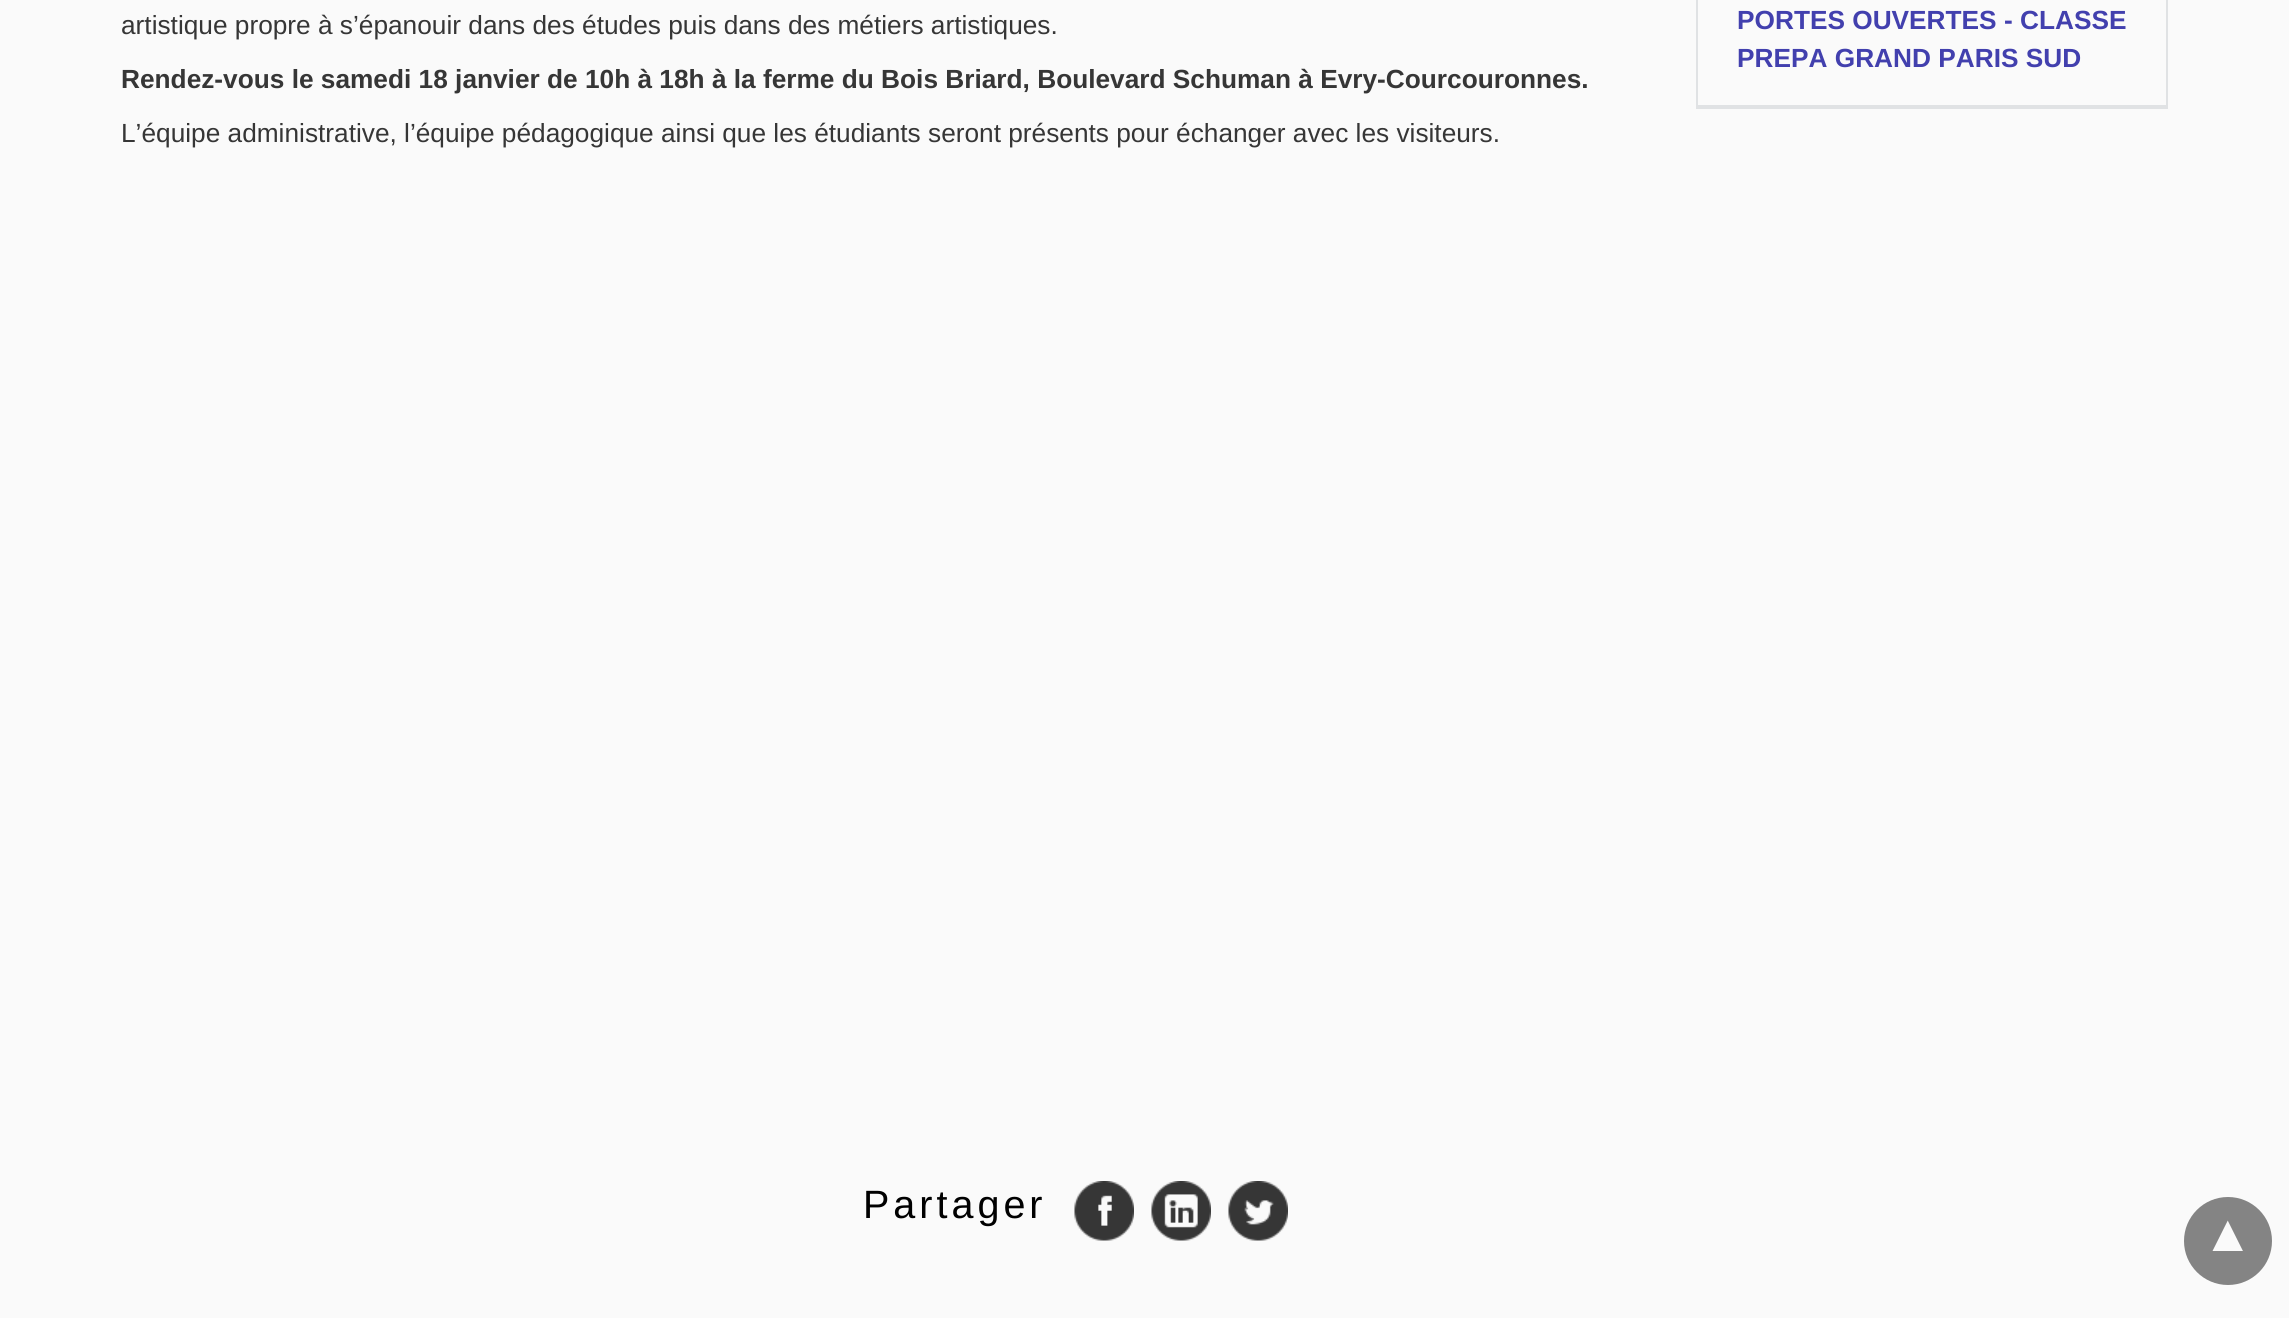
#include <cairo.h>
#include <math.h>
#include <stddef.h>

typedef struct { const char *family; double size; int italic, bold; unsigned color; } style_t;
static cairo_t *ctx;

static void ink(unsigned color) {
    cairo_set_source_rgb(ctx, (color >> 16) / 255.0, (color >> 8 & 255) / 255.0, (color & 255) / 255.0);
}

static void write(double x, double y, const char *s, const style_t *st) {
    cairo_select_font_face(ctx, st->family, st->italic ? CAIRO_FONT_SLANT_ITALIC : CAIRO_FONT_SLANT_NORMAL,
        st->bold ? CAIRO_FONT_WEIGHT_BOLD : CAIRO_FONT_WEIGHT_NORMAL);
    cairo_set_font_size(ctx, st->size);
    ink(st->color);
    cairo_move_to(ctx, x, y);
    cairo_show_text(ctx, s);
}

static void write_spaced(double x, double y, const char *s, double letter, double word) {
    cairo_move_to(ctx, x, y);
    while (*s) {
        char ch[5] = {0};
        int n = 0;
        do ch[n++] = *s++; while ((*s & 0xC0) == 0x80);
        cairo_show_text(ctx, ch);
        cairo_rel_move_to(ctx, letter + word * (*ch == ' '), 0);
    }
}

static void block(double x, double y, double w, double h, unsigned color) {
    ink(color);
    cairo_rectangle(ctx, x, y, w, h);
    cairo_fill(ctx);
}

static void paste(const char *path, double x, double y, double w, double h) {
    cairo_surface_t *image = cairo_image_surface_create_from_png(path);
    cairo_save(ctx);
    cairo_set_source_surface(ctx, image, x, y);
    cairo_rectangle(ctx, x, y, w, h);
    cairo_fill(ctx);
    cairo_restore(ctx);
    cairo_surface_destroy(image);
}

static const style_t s1 = {"Liberation Sans", 26.25, 0, 0, 0x363636};
static const style_t s2 = {"Liberation Sans", 26.25, 0, 1, 0x363636};
static const style_t s3 = {"Liberation Sans", 26.25, 0, 1, 0x4240ae};
static const style_t s4 = {"Liberation Sans", 52, 0, 0, 0xfafafa};

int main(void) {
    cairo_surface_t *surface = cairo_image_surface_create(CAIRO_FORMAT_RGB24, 2289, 1318);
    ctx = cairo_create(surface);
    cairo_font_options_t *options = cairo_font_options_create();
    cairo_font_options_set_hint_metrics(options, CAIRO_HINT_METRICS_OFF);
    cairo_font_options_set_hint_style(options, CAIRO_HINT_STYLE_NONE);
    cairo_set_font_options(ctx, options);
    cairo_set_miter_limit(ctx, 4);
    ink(0xfafafa);
    cairo_paint(ctx);
    write(121, 34, "artistique propre à s’épanouir dans des études puis dans des métiers artistiques.", &s1);
    write(121, 88, "Rendez-vous le samedi 18 janvier de 10h à 18h à la ferme du Bois Briard, Boulevard Schuman à Evry-Courcouronnes.", &s2);
    write(121, 142, "L’équipe administrative, l’équipe pédagogique ainsi que les étudiants seront présents pour échanger avec les visiteurs.", &s1);
    cairo_rectangle(ctx, 1697, -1, 470, 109);
    ink(0xe0e2e4);
    cairo_stroke(ctx);
    block(1698, 105, 469, 2, 0xe0e2e4);
    write(1737, 29, "PORTES OUVERTES - CLASSE", &s3);
    write(1737, 67, "PREPA GRAND PARIS SUD", &s3);
    cairo_select_font_face(ctx, "Liberation Sans", CAIRO_FONT_SLANT_NORMAL, CAIRO_FONT_WEIGHT_NORMAL);
    cairo_set_font_size(ctx, 39.5);
    ink(0x000000);
    write_spaced(863, 1218, "Partager", 4, 0);
    paste("pic1.png", 1074, 1181, 60, 60);
    paste("pic2.png", 1151, 1181, 60, 60);
    paste("pic3.png", 1228, 1181, 60, 60);
    ink(0x848484);
    cairo_arc(ctx, 2228, 1241, 44, 0, 2 * M_PI);
    cairo_fill(ctx);
    write(2202, 1251, "▲", &s4);
    cairo_surface_write_to_png(surface, "screenshot.png");
    cairo_font_options_destroy(options);
    cairo_destroy(ctx);
    cairo_surface_destroy(surface);
    return 0;
}
